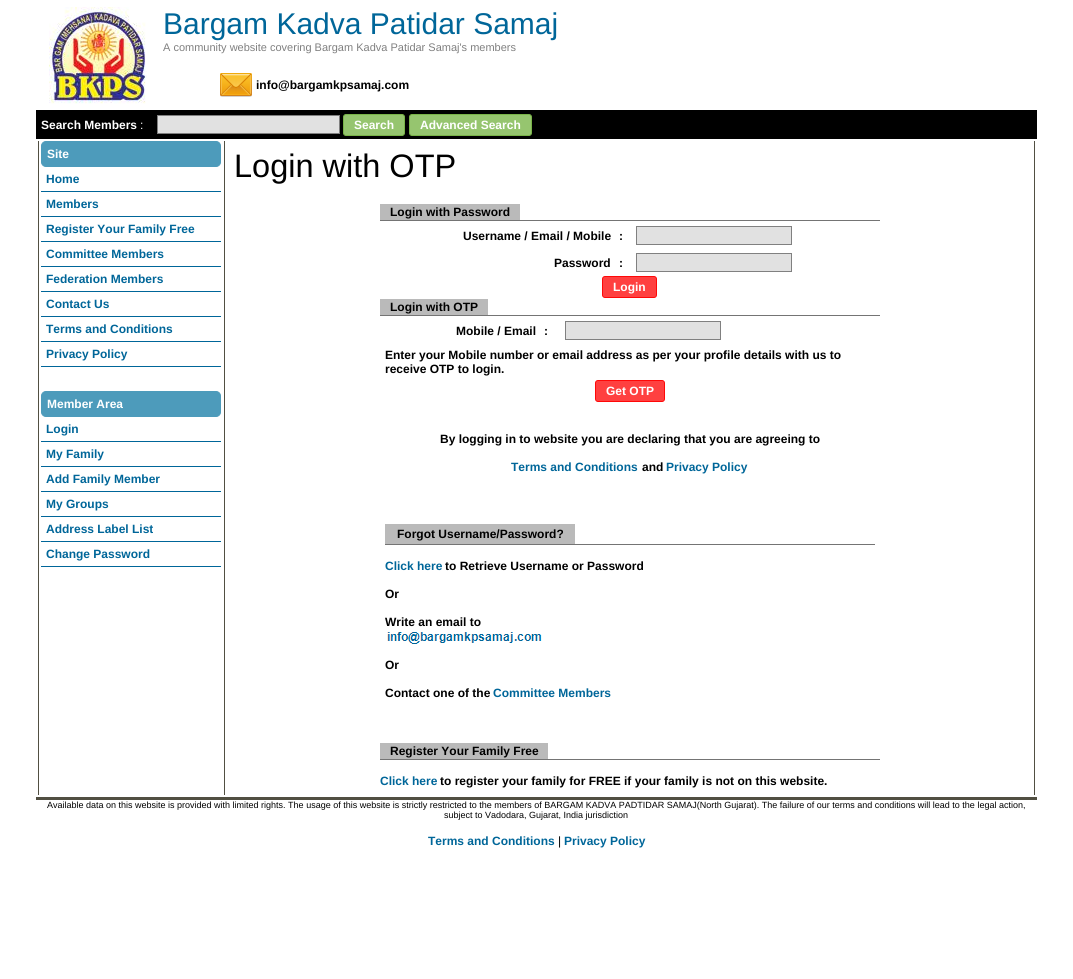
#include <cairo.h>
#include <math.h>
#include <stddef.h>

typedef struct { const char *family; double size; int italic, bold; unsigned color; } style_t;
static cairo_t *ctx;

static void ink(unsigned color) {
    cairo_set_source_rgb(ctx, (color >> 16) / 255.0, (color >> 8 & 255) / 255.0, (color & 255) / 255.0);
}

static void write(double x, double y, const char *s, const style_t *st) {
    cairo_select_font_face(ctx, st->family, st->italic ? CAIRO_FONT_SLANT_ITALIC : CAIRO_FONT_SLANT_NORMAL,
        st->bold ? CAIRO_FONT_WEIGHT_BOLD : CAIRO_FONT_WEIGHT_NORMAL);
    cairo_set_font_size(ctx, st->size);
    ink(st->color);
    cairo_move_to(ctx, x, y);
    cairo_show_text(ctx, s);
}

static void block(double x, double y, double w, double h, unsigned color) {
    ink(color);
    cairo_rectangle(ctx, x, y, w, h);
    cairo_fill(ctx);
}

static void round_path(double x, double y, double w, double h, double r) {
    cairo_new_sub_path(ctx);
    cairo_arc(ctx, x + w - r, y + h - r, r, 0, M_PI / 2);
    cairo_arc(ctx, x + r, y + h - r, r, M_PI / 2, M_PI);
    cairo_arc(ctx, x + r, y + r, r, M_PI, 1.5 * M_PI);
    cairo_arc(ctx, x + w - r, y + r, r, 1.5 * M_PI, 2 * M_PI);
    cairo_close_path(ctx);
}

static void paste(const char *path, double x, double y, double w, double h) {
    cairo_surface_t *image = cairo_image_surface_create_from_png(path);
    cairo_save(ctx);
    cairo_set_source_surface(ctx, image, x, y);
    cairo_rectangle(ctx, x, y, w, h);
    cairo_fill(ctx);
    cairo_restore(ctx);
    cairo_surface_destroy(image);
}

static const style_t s1 = {"Liberation Sans", 30, 0, 0, 0x006699};
static const style_t s2 = {"Liberation Sans", 11, 0, 0, 0x808080};
static const style_t s3 = {"Liberation Sans", 12, 0, 1, 0x000000};
static const style_t s4 = {"Liberation Sans", 12, 0, 1, 0xffffff};
static const style_t s5 = {"Liberation Sans", 12, 0, 0, 0xffffff};
static const style_t s6 = {"Liberation Sans", 12, 0, 1, 0x006699};
static const style_t s7 = {"Liberation Sans", 32.5, 0, 0, 0x000000};
static const style_t s8 = {"Liberation Sans", 9, 0, 0, 0x000000};
static const style_t s9 = {"Liberation Sans", 12, 0, 0, 0x000000};

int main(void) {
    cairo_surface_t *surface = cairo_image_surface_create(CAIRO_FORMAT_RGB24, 1073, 979);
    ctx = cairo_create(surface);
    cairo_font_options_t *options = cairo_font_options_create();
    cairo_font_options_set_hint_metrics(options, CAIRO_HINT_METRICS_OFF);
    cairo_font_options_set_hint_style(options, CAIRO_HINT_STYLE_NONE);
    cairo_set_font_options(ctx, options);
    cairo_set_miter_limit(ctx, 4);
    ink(0xffffff);
    cairo_paint(ctx);
    paste("pic1.png", 49, 7, 98, 97);
    write(163, 34, "Bargam Kadva Patidar Samaj", &s1);
    write(163, 51, "A community website covering Bargam Kadva Patidar Samaj's members", &s2);
    paste("pic2.png", 220, 73, 32, 24);
    write(256, 89, "info@bargamkpsamaj.com", &s3);
    block(36, 110, 1001, 29, 0x000000);
    write(41, 129, "Search Members", &s4);
    write(140, 129, ":", &s5);
    ink(0xe1e1e1);
    cairo_rectangle(ctx, 157.5, 115.5, 182, 18);
    cairo_fill_preserve(ctx);
    ink(0x808080);
    cairo_set_line_width(ctx, 1);
    cairo_stroke(ctx);
    ink(0x96c56f);
    round_path(343.5, 114.5, 61, 21, 2.5);
    cairo_fill_preserve(ctx);
    ink(0x79b448);
    cairo_stroke(ctx);
    write(354, 129, "Search", &s4);
    ink(0x96c56f);
    round_path(409.5, 114.5, 122, 21, 2.5);
    cairo_fill_preserve(ctx);
    ink(0x79b448);
    cairo_stroke(ctx);
    write(420, 129, "Advanced Search", &s4);
    block(38, 141, 1, 654, 0x514f42);
    ink(0x4d9bbb);
    round_path(41.5, 141.5, 179, 25, 4.5);
    cairo_fill_preserve(ctx);
    cairo_stroke(ctx);
    write(47, 158, "Site", &s4);
    block(41, 191, 180, 1, 0x006699);
    write(46, 183, "Home", &s6);
    block(41, 216, 180, 1, 0x006699);
    write(46, 208, "Members", &s6);
    block(41, 241, 180, 1, 0x006699);
    write(46, 233, "Register Your Family Free", &s6);
    block(41, 266, 180, 1, 0x006699);
    write(46, 258, "Committee Members", &s6);
    block(41, 291, 180, 1, 0x006699);
    write(46, 283, "Federation Members", &s6);
    block(41, 316, 180, 1, 0x006699);
    write(46, 308, "Contact Us", &s6);
    block(41, 341, 180, 1, 0x006699);
    write(46, 333, "Terms and Conditions", &s6);
    block(41, 366, 180, 1, 0x006699);
    write(46, 358, "Privacy Policy", &s6);
    ink(0x4d9bbb);
    round_path(41.5, 391.5, 179, 25, 4.5);
    cairo_fill_preserve(ctx);
    cairo_stroke(ctx);
    write(47, 408, "Member Area", &s4);
    block(41, 441, 180, 1, 0x006699);
    write(46, 433, "Login", &s6);
    block(41, 466, 180, 1, 0x006699);
    write(46, 458, "My Family", &s6);
    block(41, 491, 180, 1, 0x006699);
    write(46, 483, "Add Family Member", &s6);
    block(41, 516, 180, 1, 0x006699);
    write(46, 508, "My Groups", &s6);
    block(41, 541, 180, 1, 0x006699);
    write(46, 533, "Address Label List", &s6);
    block(41, 566, 180, 1, 0x006699);
    write(46, 558, "Change Password", &s6);
    block(224, 141, 1, 654, 0x514f42);
    write(234, 177, "Login with OTP", &s7);
    block(380, 220, 500, 1, 0x747474);
    block(380, 204, 140, 16, 0xbababa);
    write(390, 216, "Login with Password", &s3);
    write(463, 240, "Username / Email / Mobile", &s3);
    write(619, 240, ":", &s3);
    ink(0xe1e1e1);
    cairo_rectangle(ctx, 636.5, 226.5, 155, 18);
    cairo_fill_preserve(ctx);
    ink(0x808080);
    cairo_stroke(ctx);
    write(554, 267, "Password", &s3);
    write(619, 267, ":", &s3);
    ink(0xe1e1e1);
    cairo_rectangle(ctx, 636.5, 253.5, 155, 18);
    cairo_fill_preserve(ctx);
    ink(0x808080);
    cairo_stroke(ctx);
    ink(0xff4040);
    round_path(602.5, 276.5, 54, 21, 2.5);
    cairo_fill_preserve(ctx);
    ink(0xff0808);
    cairo_stroke(ctx);
    write(613, 291, "Login", &s4);
    block(380, 315, 500, 1, 0x747474);
    block(380, 299, 108, 16, 0xbababa);
    write(390, 311, "Login with OTP", &s3);
    write(456, 335, "Mobile / Email", &s3);
    write(544, 335, ":", &s3);
    ink(0xe1e1e1);
    cairo_rectangle(ctx, 565.5, 321.5, 155, 18);
    cairo_fill_preserve(ctx);
    ink(0x808080);
    cairo_stroke(ctx);
    write(385, 359, "Enter your Mobile number or email address as per your profile details with us to", &s3);
    write(385, 373, "receive OTP to login.", &s3);
    ink(0xff4040);
    round_path(595.5, 380.5, 69, 21, 2.5);
    cairo_fill_preserve(ctx);
    ink(0xff0808);
    cairo_stroke(ctx);
    write(606, 395, "Get OTP", &s4);
    write(440, 443, "By logging in to website you are declaring that you are agreeing to", &s3);
    write(511, 471, "Terms and Conditions", &s6);
    write(642, 471, "and", &s3);
    write(666, 471, "Privacy Policy", &s6);
    block(385, 544, 490, 1, 0x747474);
    block(385, 524, 190, 20, 0xbababa);
    write(397, 538, "Forgot Username/Password?", &s3);
    write(385, 570, "Click here", &s6);
    write(445, 570, "to Retrieve Username or Password", &s3);
    write(385, 598, "Or", &s3);
    write(385, 626, "Write an email to", &s3);
    paste("pic3.png", 387, 632, 155, 12);
    write(385, 669, "Or", &s3);
    write(385, 697, "Contact one of the", &s3);
    write(493, 697, "Committee Members", &s6);
    block(380, 759, 500, 1, 0x747474);
    block(380, 743, 168, 16, 0xbababa);
    write(390, 755, "Register Your Family Free", &s3);
    write(380, 785, "Click here", &s6);
    write(440, 785, "to register your family for FREE if your family is not on this website.", &s3);
    block(1034, 141, 1, 654, 0x514f42);
    block(36, 797, 1001, 3, 0x514f42);
    write(47, 808, "Available data on this website is provided with limited rights. The usage of this website is strictly restricted to the members of BARGAM KADVA PADTIDAR SAMAJ(North Gujarat). The failure of our terms and conditions will lead to the legal action,", &s8);
    write(444, 818, "subject to Vadodara, Gujarat, India jurisdiction", &s8);
    write(428, 845, "Terms and Conditions", &s6);
    write(558, 845, "|", &s9);
    write(564, 845, "Privacy Policy", &s6);
    cairo_surface_write_to_png(surface, "screenshot.png");
    cairo_font_options_destroy(options);
    cairo_destroy(ctx);
    cairo_surface_destroy(surface);
    return 0;
}
